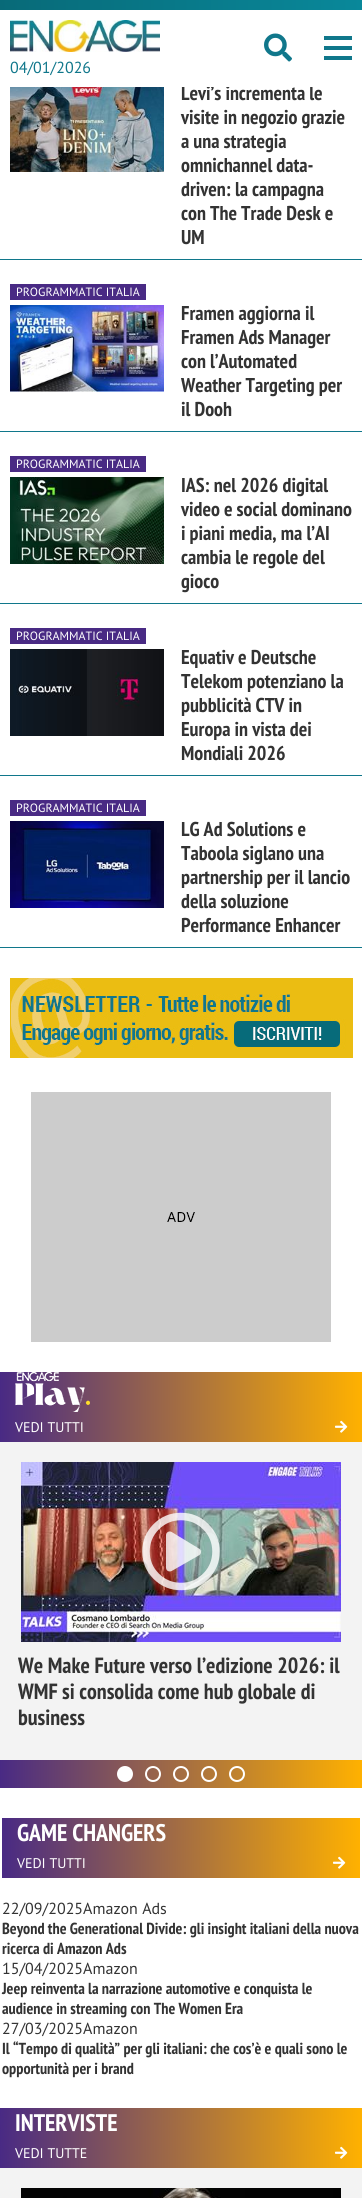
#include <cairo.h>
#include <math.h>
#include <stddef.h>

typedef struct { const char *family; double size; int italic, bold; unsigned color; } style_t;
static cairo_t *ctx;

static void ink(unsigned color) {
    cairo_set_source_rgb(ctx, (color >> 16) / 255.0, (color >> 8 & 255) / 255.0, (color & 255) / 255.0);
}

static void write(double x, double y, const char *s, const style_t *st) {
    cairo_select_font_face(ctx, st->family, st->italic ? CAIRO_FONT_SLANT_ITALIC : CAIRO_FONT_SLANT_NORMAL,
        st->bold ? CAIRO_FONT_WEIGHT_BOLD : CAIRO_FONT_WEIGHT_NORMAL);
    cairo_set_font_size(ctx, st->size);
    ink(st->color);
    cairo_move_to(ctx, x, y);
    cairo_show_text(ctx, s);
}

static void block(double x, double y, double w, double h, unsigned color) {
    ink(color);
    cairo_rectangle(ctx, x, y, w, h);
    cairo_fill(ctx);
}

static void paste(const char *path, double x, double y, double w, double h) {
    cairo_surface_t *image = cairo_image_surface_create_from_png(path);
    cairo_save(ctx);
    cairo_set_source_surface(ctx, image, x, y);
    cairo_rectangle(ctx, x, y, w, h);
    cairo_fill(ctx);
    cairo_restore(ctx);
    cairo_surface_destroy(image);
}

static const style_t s1 = {"PT Sans Narrow", 20, 0, 1, 0x333333};
static const style_t s2 = {"PT Sans", 16, 0, 0, 0x10778b};
static const style_t s3 = {"PT Sans", 12, 0, 0, 0xffffff};
static const style_t s4 = {"PT Sans", 14, 0, 0, 0xffffff};
static const style_t s5 = {"PT Sans Narrow", 22, 0, 1, 0x333333};
static const style_t s6 = {"PT Sans Narrow", 24, 0, 1, 0xffffff};
static const style_t s7 = {"PT Sans", 16, 0, 0, 0x333333};
static const style_t s8 = {"PT Sans Narrow", 16, 0, 1, 0x333333};

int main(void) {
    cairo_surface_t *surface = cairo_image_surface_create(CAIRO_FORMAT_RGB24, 362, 2198);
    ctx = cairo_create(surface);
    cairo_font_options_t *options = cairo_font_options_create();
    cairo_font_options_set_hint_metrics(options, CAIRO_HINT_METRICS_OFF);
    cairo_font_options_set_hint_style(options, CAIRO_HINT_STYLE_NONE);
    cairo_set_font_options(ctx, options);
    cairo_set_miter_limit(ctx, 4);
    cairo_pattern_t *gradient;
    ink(0xffffff);
    cairo_paint(ctx);
    gradient = cairo_pattern_create_linear(0, 5, 362, 5);
    cairo_pattern_add_color_stop_rgba(gradient, 0, 0.031, 0.416, 0.471, 1);
    cairo_pattern_add_color_stop_rgba(gradient, 1, 0.035, 0.533, 0.604, 1);
    cairo_set_source(ctx, gradient);
    cairo_pattern_destroy(gradient);
    cairo_rectangle(ctx, 0, 0, 362, 10);
    cairo_fill(ctx);
    write(181, 100, "Levi’s incrementa le", &s1);
    block(181, 85, 132, 2, 0xffffff);
    paste("pic1.png", 264, 33, 28, 29);
    block(324, 46, 28, 4, 0x10778b);
    block(324, 36, 28, 4, 0x10778b);
    block(324, 56, 28, 4, 0x10778b);
    paste("pic2.png", 10, 20, 150, 32);
    write(10, 73, "04/01/2026", &s2);
    block(0, 259, 362, 1, 0x10778b);
    paste("pic3.png", 10, 87, 154, 85);
    write(181, 124, "visite in negozio grazie", &s1);
    write(181, 148, "a una strategia", &s1);
    write(181, 172, "omnichannel data-", &s1);
    write(181, 196, "driven: la campagna", &s1);
    write(181, 220, "con The Trade Desk e", &s1);
    write(181, 244, "UM", &s1);
    block(0, 431, 362, 1, 0x10778b);
    block(10, 284, 136, 16, 0x492a84);
    write(16, 296, "PROGRAMMATIC ITALIA", &s3);
    paste("pic4.png", 10, 305, 154, 87);
    write(181, 320, "Framen aggiorna il", &s1);
    write(181, 344, "Framen Ads Manager", &s1);
    write(181, 368, "con l’Automated", &s1);
    write(181, 392, "Weather Targeting per", &s1);
    write(181, 416, "il Dooh", &s1);
    block(0, 603, 362, 1, 0x10778b);
    block(10, 456, 136, 16, 0x492a84);
    write(16, 468, "PROGRAMMATIC ITALIA", &s3);
    paste("pic5.png", 10, 477, 154, 87);
    write(181, 492, "IAS: nel 2026 digital", &s1);
    write(181, 516, "video e social dominano", &s1);
    write(181, 540, "i piani media, ma l’AI", &s1);
    write(181, 564, "cambia le regole del", &s1);
    write(181, 588, "gioco", &s1);
    block(0, 775, 362, 1, 0x10778b);
    block(10, 628, 136, 16, 0x492a84);
    write(16, 640, "PROGRAMMATIC ITALIA", &s3);
    paste("pic6.png", 10, 649, 154, 87);
    write(181, 664, "Equativ e Deutsche", &s1);
    write(181, 688, "Telekom potenziano la", &s1);
    write(181, 712, "pubblicità CTV in", &s1);
    write(181, 736, "Europa in vista dei", &s1);
    write(181, 760, "Mondiali 2026", &s1);
    block(0, 947, 362, 1, 0x10778b);
    block(10, 800, 136, 16, 0x492a84);
    write(16, 812, "PROGRAMMATIC ITALIA", &s3);
    paste("pic7.png", 10, 821, 154, 87);
    write(181, 836, "LG Ad Solutions e", &s1);
    write(181, 860, "Taboola siglano una", &s1);
    write(181, 884, "partnership per il lancio", &s1);
    write(181, 908, "della soluzione", &s1);
    write(181, 932, "Performance Enhancer", &s1);
    paste("pic8.png", 10, 978, 343, 80);
    block(31, 1092, 300, 250, 0xcccccc);
    paste("pic9.png", 167, 1212, 28, 10);
    block(0, 1442, 362, 318, 0xf3f3f3);
    gradient = cairo_pattern_create_linear(0, 1407, 362, 1407);
    cairo_pattern_add_color_stop_rgba(gradient, 0, 0.286, 0.165, 0.518, 1);
    cairo_pattern_add_color_stop_rgba(gradient, 1, 1, 0.694, 0, 1);
    cairo_set_source(ctx, gradient);
    cairo_pattern_destroy(gradient);
    cairo_rectangle(ctx, 0, 1372, 362, 70);
    cairo_fill(ctx);
    paste("pic10.png", 15, 1372, 75, 40);
    write(15, 1432, "VEDI TUTTI", &s4);
    paste("pic11.png", 335, 1420, 13, 13);
    paste("pic12.png", 21, 1462, 320, 180);
    paste("pic13.png", 142, 1512, 78, 79);
    write(18, 1673, "We Make Future verso l’edizione 2026: il", &s5);
    write(18, 1699, "WMF si consolida come hub globale di", &s5);
    write(18, 1725, "business", &s5);
    gradient = cairo_pattern_create_linear(0, 1774, 362, 1774);
    cairo_pattern_add_color_stop_rgba(gradient, 0, 0.286, 0.165, 0.518, 1);
    cairo_pattern_add_color_stop_rgba(gradient, 1, 1, 0.694, 0, 1);
    cairo_set_source(ctx, gradient);
    cairo_pattern_destroy(gradient);
    cairo_rectangle(ctx, 0, 1760, 362, 28);
    cairo_fill(ctx);
    ink(0xffffff);
    cairo_arc(ctx, 125, 1774, 7, 0, 2 * M_PI);
    cairo_fill_preserve(ctx);
    cairo_stroke(ctx);
    cairo_arc(ctx, 153, 1774, 7, 0, 2 * M_PI);
    cairo_stroke(ctx);
    cairo_arc(ctx, 181, 1774, 7, 0, 2 * M_PI);
    cairo_stroke(ctx);
    cairo_arc(ctx, 209, 1774, 7, 0, 2 * M_PI);
    cairo_stroke(ctx);
    cairo_arc(ctx, 237, 1774, 7, 0, 2 * M_PI);
    cairo_stroke(ctx);
    gradient = cairo_pattern_create_linear(2, 1848, 360, 1848);
    cairo_pattern_add_color_stop_rgba(gradient, 0, 0.286, 0.165, 0.518, 1);
    cairo_pattern_add_color_stop_rgba(gradient, 1, 1, 0.694, 0, 1);
    cairo_set_source(ctx, gradient);
    cairo_pattern_destroy(gradient);
    cairo_rectangle(ctx, 2, 1818, 358, 60);
    cairo_fill(ctx);
    write(17, 1841, "GAME CHANGERS", &s6);
    write(17, 1868, "VEDI TUTTI", &s4);
    paste("pic14.png", 333, 1856, 13, 13);
    write(2, 1914, "22/09/2025Amazon Ads", &s7);
    write(2, 1934, "Beyond the Generational Divide: gli insight italiani della nuova", &s8);
    write(2, 1954, "ricerca di Amazon Ads", &s8);
    write(2, 1974, "15/04/2025Amazon", &s7);
    write(2, 1994, "Jeep reinventa la narrazione automotive e conquista le", &s8);
    write(2, 2014, "audience in streaming con The Women Era", &s8);
    write(2, 2034, "27/03/2025Amazon", &s7);
    write(2, 2054, "Il “Tempo di qualità” per gli italiani: che cos’è e quali sono le", &s8);
    write(2, 2074, "opportunità per i brand", &s8);
    block(0, 2168, 362, 30, 0xf3f3f3);
    gradient = cairo_pattern_create_linear(0, 2138, 362, 2138);
    cairo_pattern_add_color_stop_rgba(gradient, 0, 0.286, 0.165, 0.518, 1);
    cairo_pattern_add_color_stop_rgba(gradient, 1, 1, 0.694, 0, 1);
    cairo_set_source(ctx, gradient);
    cairo_pattern_destroy(gradient);
    cairo_rectangle(ctx, 0, 2108, 362, 60);
    cairo_fill(ctx);
    write(15, 2131, "INTERVISTE", &s6);
    write(15, 2158, "VEDI TUTTE", &s4);
    paste("pic11.png", 335, 2146, 13, 13);
    paste("pic15.png", 21, 2188, 320, 10);
    cairo_surface_write_to_png(surface, "screenshot.png");
    cairo_font_options_destroy(options);
    cairo_destroy(ctx);
    cairo_surface_destroy(surface);
    return 0;
}
